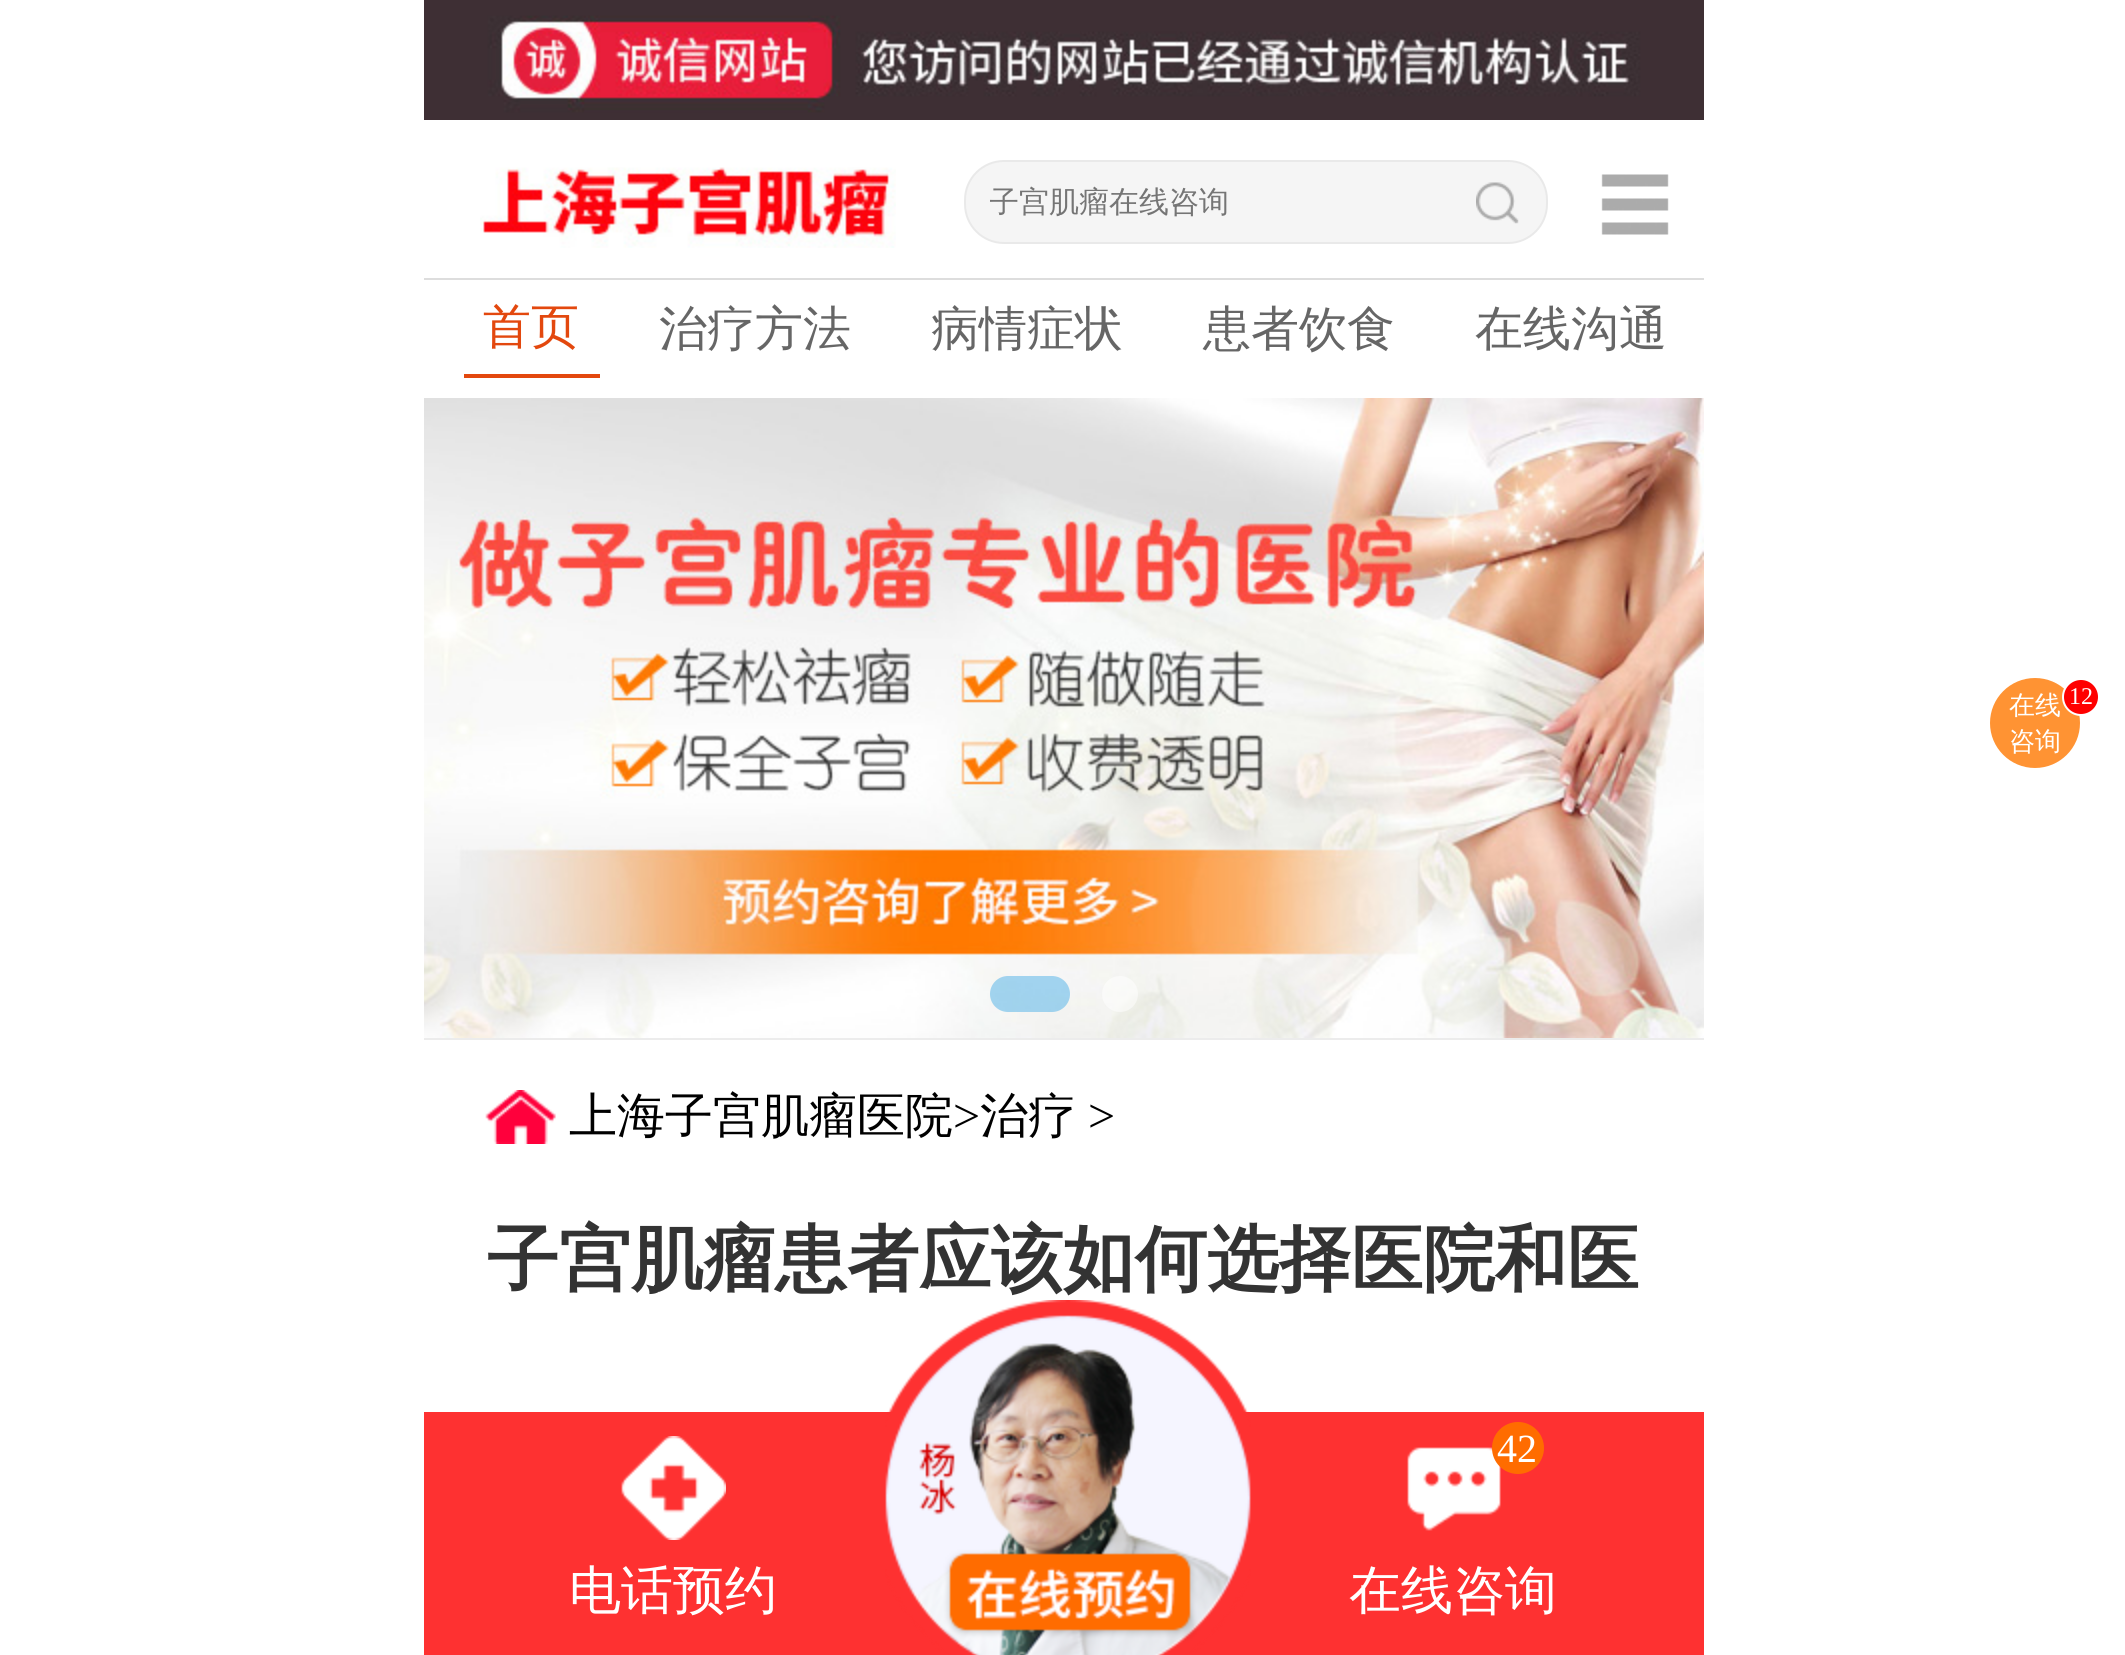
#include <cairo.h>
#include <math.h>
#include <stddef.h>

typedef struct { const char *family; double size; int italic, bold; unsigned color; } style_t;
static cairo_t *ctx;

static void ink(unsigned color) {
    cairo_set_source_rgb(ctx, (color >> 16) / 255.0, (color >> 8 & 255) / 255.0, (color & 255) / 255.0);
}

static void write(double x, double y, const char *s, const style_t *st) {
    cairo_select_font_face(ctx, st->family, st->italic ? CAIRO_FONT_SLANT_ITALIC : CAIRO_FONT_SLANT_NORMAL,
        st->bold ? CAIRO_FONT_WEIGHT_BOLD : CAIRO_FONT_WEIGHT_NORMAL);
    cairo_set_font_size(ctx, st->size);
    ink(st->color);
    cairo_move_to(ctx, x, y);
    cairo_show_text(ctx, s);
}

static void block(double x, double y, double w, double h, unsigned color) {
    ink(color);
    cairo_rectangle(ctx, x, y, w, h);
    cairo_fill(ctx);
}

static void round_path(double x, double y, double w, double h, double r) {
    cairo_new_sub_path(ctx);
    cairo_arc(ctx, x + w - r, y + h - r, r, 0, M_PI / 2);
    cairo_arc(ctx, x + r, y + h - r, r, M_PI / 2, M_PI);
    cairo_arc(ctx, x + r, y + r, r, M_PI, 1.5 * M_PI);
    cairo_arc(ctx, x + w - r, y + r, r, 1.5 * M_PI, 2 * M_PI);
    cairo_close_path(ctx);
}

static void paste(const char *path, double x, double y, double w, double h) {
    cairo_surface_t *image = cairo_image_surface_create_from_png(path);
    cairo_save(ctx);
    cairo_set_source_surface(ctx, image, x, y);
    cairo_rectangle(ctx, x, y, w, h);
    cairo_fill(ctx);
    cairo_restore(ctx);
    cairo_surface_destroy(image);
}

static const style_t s1 = {"WenQuanYi Zen Hei Medium", 30, 0, 0, 0x757575};
static const style_t s2 = {"WenQuanYi Zen Hei Medium", 48, 0, 0, 0xe3480e};
static const style_t s3 = {"WenQuanYi Zen Hei Medium", 48, 0, 0, 0x666666};
static const style_t s4 = {"WenQuanYi Zen Hei Medium", 48, 0, 0, 0x000000};
static const style_t s5 = {"Liberation Serif", 48, 0, 0, 0x000000};
static const style_t s6 = {"WenQuanYi Zen Hei", 72, 0, 1, 0x333333};
static const style_t s7 = {"WenQuanYi Zen Hei Medium", 52, 0, 0, 0xffffff};
static const style_t s8 = {"Liberation Serif", 40, 0, 0, 0xffffff};
static const style_t s9 = {"WenQuanYi Zen Hei Medium", 26, 0, 0, 0xffffff};
static const style_t s10 = {"Liberation Serif", 24, 0, 0, 0xffffff};

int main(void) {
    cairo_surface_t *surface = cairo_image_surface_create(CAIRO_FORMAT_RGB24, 2125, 1655);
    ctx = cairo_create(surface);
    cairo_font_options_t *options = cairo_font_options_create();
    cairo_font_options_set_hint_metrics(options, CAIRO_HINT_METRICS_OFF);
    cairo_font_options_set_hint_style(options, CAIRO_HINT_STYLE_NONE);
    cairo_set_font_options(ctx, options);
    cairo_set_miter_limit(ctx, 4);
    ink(0xffffff);
    cairo_paint(ctx);
    paste("pic1.png", 424, 0, 1280, 120);
    paste("pic2.png", 480, 167, 416, 81);
    ink(0xf5f5f5);
    round_path(965, 161, 582, 82, 39);
    cairo_fill_preserve(ctx);
    ink(0xe9e9e9);
    cairo_stroke(ctx);
    cairo_save(ctx);
    cairo_rectangle(ctx, 990, 184, 400, 38);
    cairo_clip(ctx);
    write(989, 212, "子宫肌瘤在线咨询", &s1);
    cairo_restore(ctx);
    paste("pic3.png", 1476, 182, 43, 42);
    paste("pic4.png", 1601, 174, 68, 61);
    block(424, 278, 1280, 2, 0xdddddd);
    block(464, 374, 136, 4, 0xe3480e);
    write(483, 343, "首页", &s2);
    write(659, 345, "治疗方法", &s3);
    write(931, 345, "病情症状", &s3);
    write(1203, 345, "患者饮食", &s3);
    write(1475, 345, "在线沟通", &s3);
    paste("pic5.png", 424, 398, 1280, 640);
    cairo_set_source_rgba(ctx, 0.302, 0.694, 0.91, 0.5);
    round_path(990, 976, 80, 36, 18);
    cairo_fill(ctx);
    cairo_set_source_rgba(ctx, 1, 1, 1, 0.5);
    cairo_arc(ctx, 1120, 994, 18, 0, 2 * M_PI);
    cairo_fill(ctx);
    block(424, 1038, 1280, 2, 0xececec);
    paste("pic6.png", 485, 1090, 71, 54);
    write(569, 1132, "上海子宫肌瘤医院", &s4);
    write(953, 1132, ">", &s5);
    write(980, 1132, "治疗", &s4);
    write(1088, 1132, ">", &s5);
    write(487, 1284, "子宫肌瘤患者应该如何选择医院和医", &s6);
    block(424, 1412, 1280, 243, 0xfe3131);
    paste("pic7.png", 621, 1436, 105, 104);
    write(569, 1608, "电话预约", &s7);
    paste("pic8.png", 885, 1300, 366, 355);
    paste("pic9.png", 1407, 1447, 94, 84);
    ink(0xff6c00);
    cairo_arc(ctx, 1518, 1448, 26, 0, 2 * M_PI);
    cairo_fill(ctx);
    write(1497, 1462, "42", &s8);
    write(1349, 1608, "在线咨询", &s7);
    ink(0xff9333);
    cairo_new_path(ctx);
    cairo_arc(ctx, 2035, 723, 44, 0, 2 * M_PI);
    cairo_fill_preserve(ctx);
    cairo_stroke(ctx);
    write(2009, 714, "在线", &s9);
    write(2009, 750, "咨询", &s9);
    ink(0xff0000);
    cairo_new_path(ctx);
    cairo_arc(ctx, 2081, 697, 18, 0, 2 * M_PI);
    cairo_fill_preserve(ctx);
    ink(0xffffff);
    cairo_stroke(ctx);
    write(2069, 704, "12", &s10);
    cairo_surface_write_to_png(surface, "screenshot.png");
    cairo_font_options_destroy(options);
    cairo_destroy(ctx);
    cairo_surface_destroy(surface);
    return 0;
}
